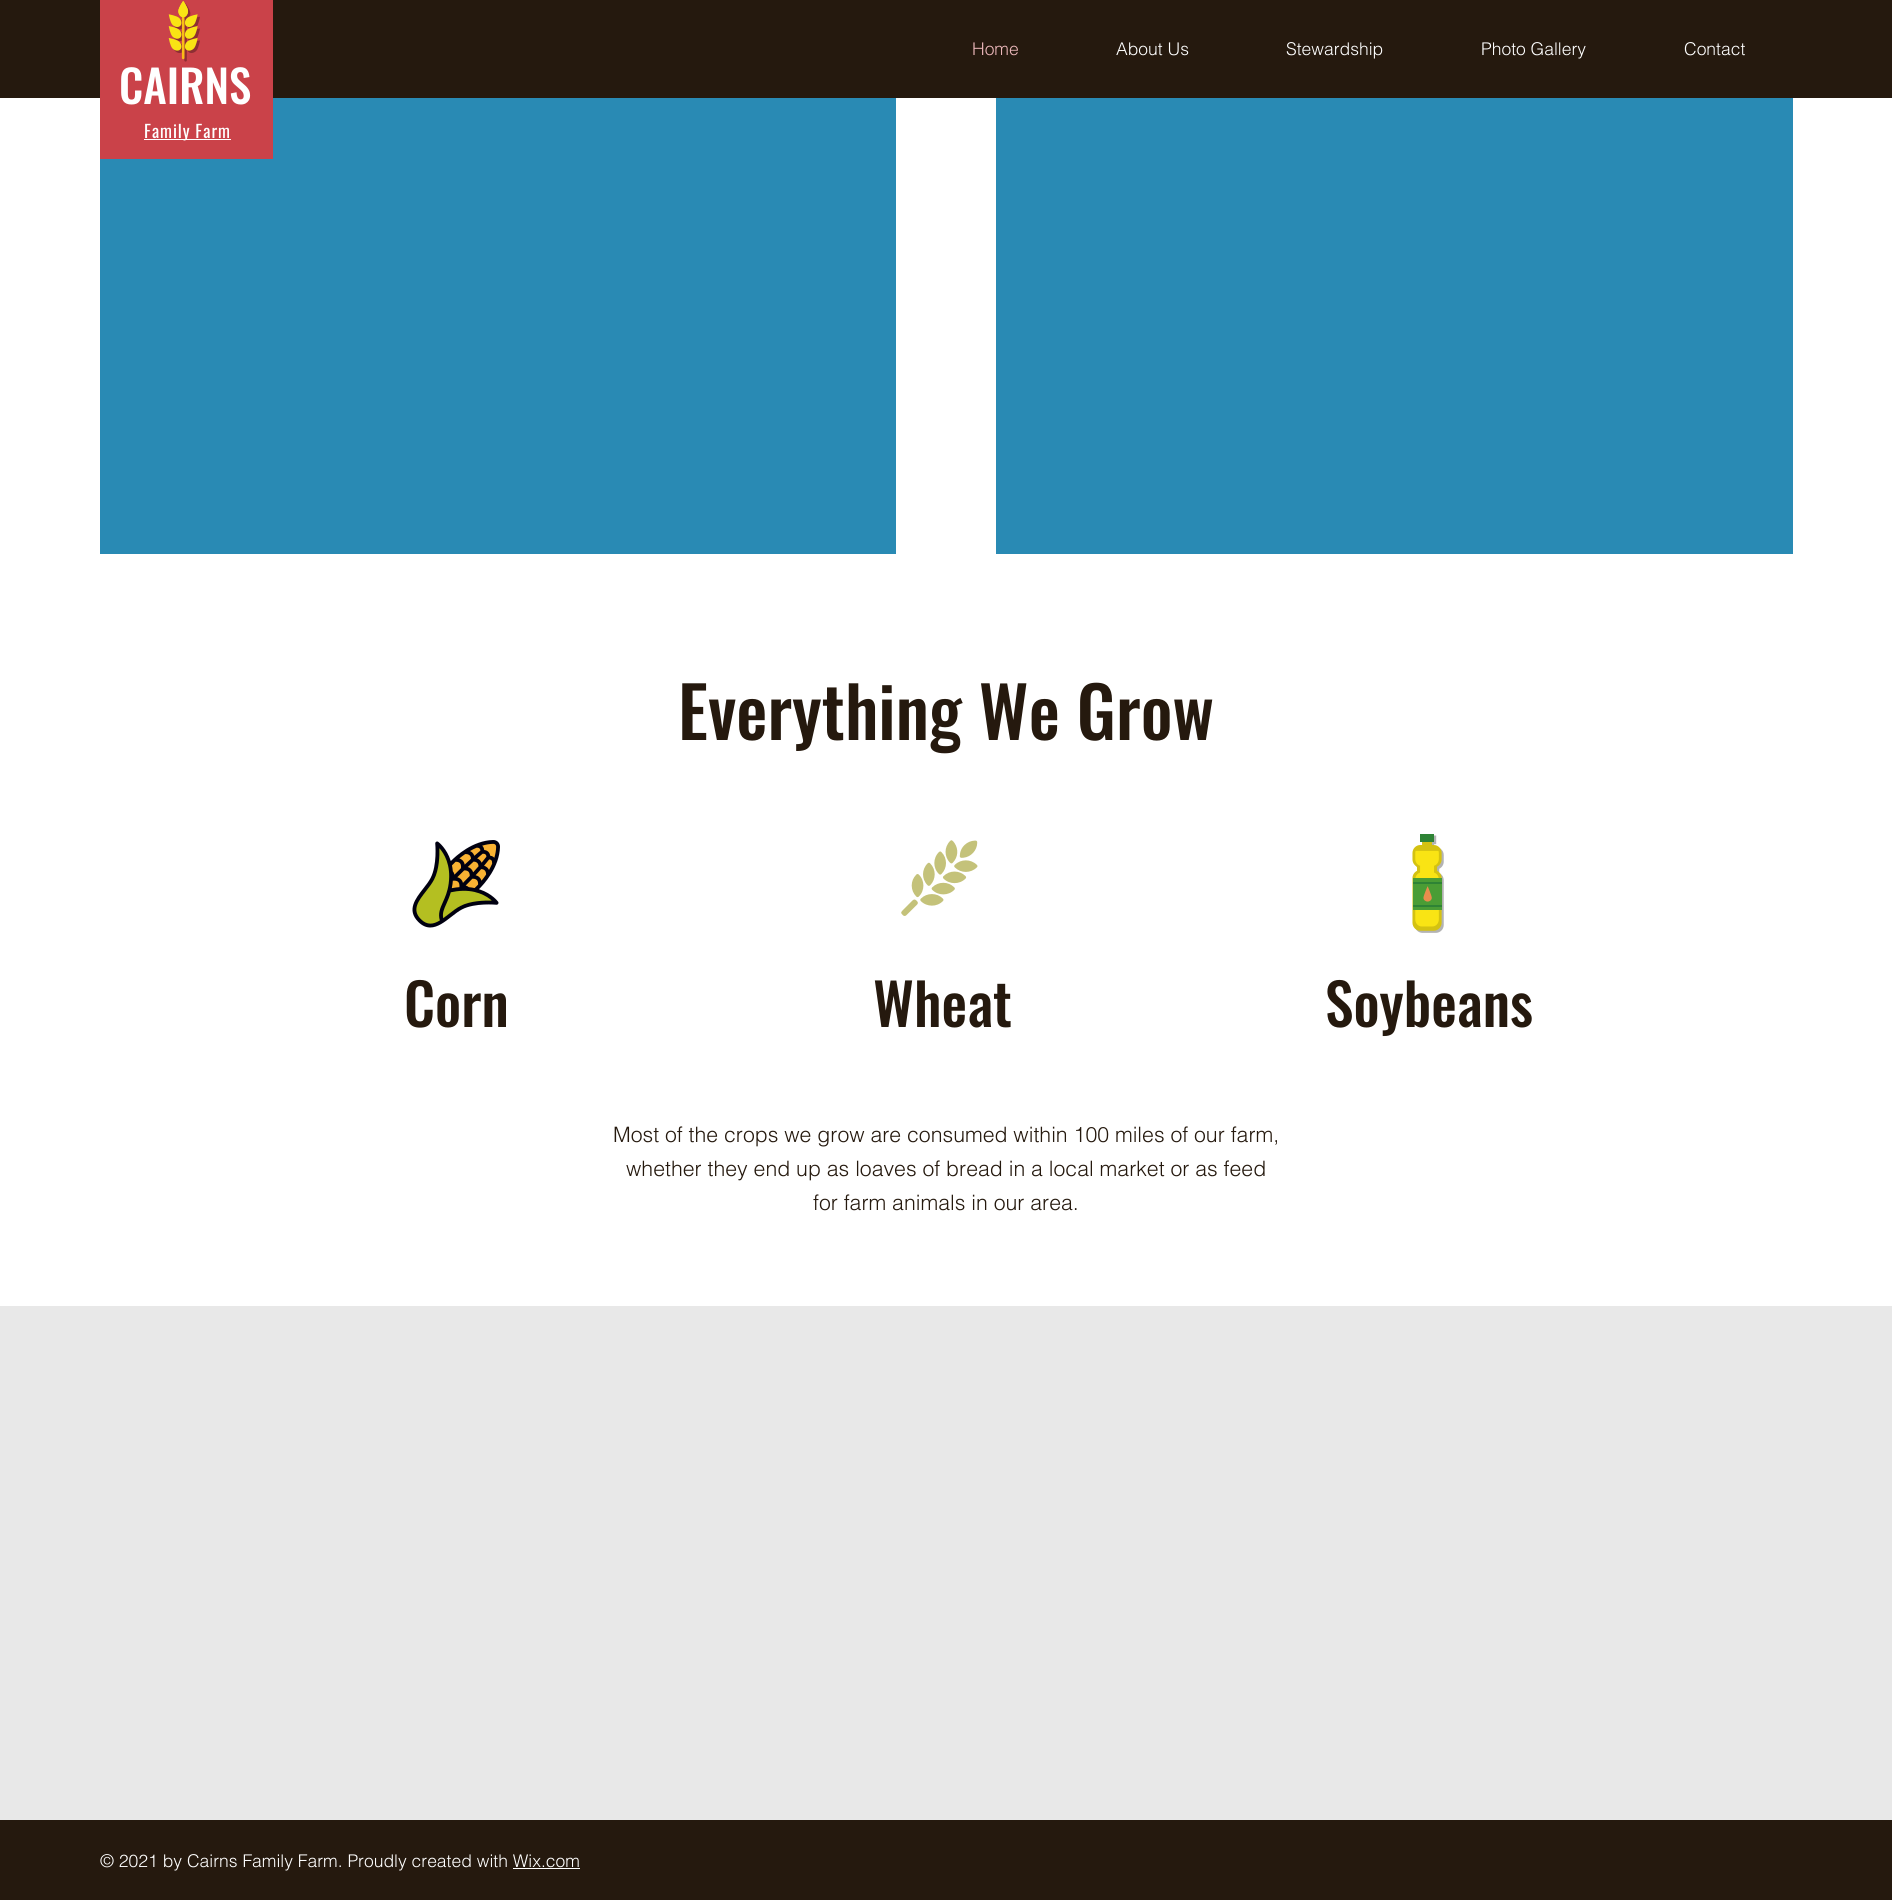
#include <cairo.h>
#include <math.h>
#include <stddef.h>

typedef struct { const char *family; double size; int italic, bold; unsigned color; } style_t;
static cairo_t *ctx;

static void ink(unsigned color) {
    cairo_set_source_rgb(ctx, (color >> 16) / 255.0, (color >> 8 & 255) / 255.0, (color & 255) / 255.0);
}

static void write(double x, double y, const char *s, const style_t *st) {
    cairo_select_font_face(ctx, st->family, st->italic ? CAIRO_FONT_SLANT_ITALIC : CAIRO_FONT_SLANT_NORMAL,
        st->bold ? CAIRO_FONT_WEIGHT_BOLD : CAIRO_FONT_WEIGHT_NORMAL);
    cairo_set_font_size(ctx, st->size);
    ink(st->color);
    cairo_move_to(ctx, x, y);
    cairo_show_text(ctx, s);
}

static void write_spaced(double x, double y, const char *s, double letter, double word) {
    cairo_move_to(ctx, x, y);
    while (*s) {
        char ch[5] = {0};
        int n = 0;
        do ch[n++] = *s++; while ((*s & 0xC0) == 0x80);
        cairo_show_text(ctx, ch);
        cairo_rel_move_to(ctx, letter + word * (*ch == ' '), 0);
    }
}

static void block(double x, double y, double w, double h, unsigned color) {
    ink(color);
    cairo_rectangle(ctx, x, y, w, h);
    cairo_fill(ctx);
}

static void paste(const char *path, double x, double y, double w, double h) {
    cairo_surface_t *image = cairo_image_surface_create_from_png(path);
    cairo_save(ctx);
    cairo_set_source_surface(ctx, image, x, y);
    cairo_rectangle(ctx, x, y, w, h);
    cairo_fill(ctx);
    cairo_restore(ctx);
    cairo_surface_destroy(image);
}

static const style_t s1 = {"helvetica Light", 17.5, 0, 0, 0xedb8bb};
static const style_t s2 = {"helvetica Light", 17.5, 0, 0, 0xffffff};
static const style_t s3 = {"Oswald Medium", 45, 0, 0, 0xffffff};
static const style_t s4 = {"Oswald Medium", 70, 0, 0, 0x25190e};
static const style_t s5 = {"Oswald Medium", 57.5, 0, 0, 0x25190e};
static const style_t s6 = {"helvetica Light", 21.25, 0, 0, 0x25190e};

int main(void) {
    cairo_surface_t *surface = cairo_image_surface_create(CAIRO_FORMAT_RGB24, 1892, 1900);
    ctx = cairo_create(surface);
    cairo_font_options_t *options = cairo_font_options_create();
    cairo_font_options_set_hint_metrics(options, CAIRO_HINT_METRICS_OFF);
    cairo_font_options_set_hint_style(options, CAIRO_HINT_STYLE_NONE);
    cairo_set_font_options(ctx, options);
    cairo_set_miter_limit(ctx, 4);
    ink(0xffffff);
    cairo_paint(ctx);
    block(0, 0, 1892, 98, 0x25190e);
    write(972, 55, "Home", &s1);
    write(1116, 55, "About Us", &s2);
    write(1286, 55, "Stewardship", &s2);
    write(1481, 55, "Photo Gallery", &s2);
    write(1684, 55, "Contact", &s2);
    block(100, 98, 796, 456, 0x298ab4);
    block(100, 0, 173, 159, 0xca4249);
    paste("pic1.png", 168, 1, 32, 61);
    write(119, 104, "CAIRNS", &s3);
    block(144, 139, 87, 1, 0xffffff);
    cairo_select_font_face(ctx, "Oswald", CAIRO_FONT_SLANT_NORMAL, CAIRO_FONT_WEIGHT_NORMAL);
    cairo_set_font_size(ctx, 17.5);
    write_spaced(144, 138, "Family Farm", 0.9, 0);
    block(996, 98, 797, 456, 0x298ab4);
    write(678, 740, "Everything We Grow", &s4);
    paste("pic2.png", 412, 840, 88, 88);
    write(404, 1027, "Corn", &s5);
    paste("pic3.png", 901, 840, 77, 76);
    write(873, 1027, "Wheat", &s5);
    paste("pic4.png", 1412, 834, 32, 99);
    write(1325, 1027, "Soybeans", &s5);
    write(613, 1142, "Most of the crops we grow are consumed within 100 miles of our farm,", &s6);
    write(626, 1176, "whether they end up as loaves of bread in a local market or as feed", &s6);
    write(813, 1210, "for farm animals in our area.", &s6);
    block(0, 1306, 1892, 514, 0xe8e8e8);
    block(0, 1820, 1892, 80, 0x25190e);
    write(100, 1867, "© 2021 by Cairns Family Farm. Proudly created with Wix.com", &s2);
    block(513, 1868, 67, 1, 0xffffff);
    cairo_surface_write_to_png(surface, "screenshot.png");
    cairo_font_options_destroy(options);
    cairo_destroy(ctx);
    cairo_surface_destroy(surface);
    return 0;
}
